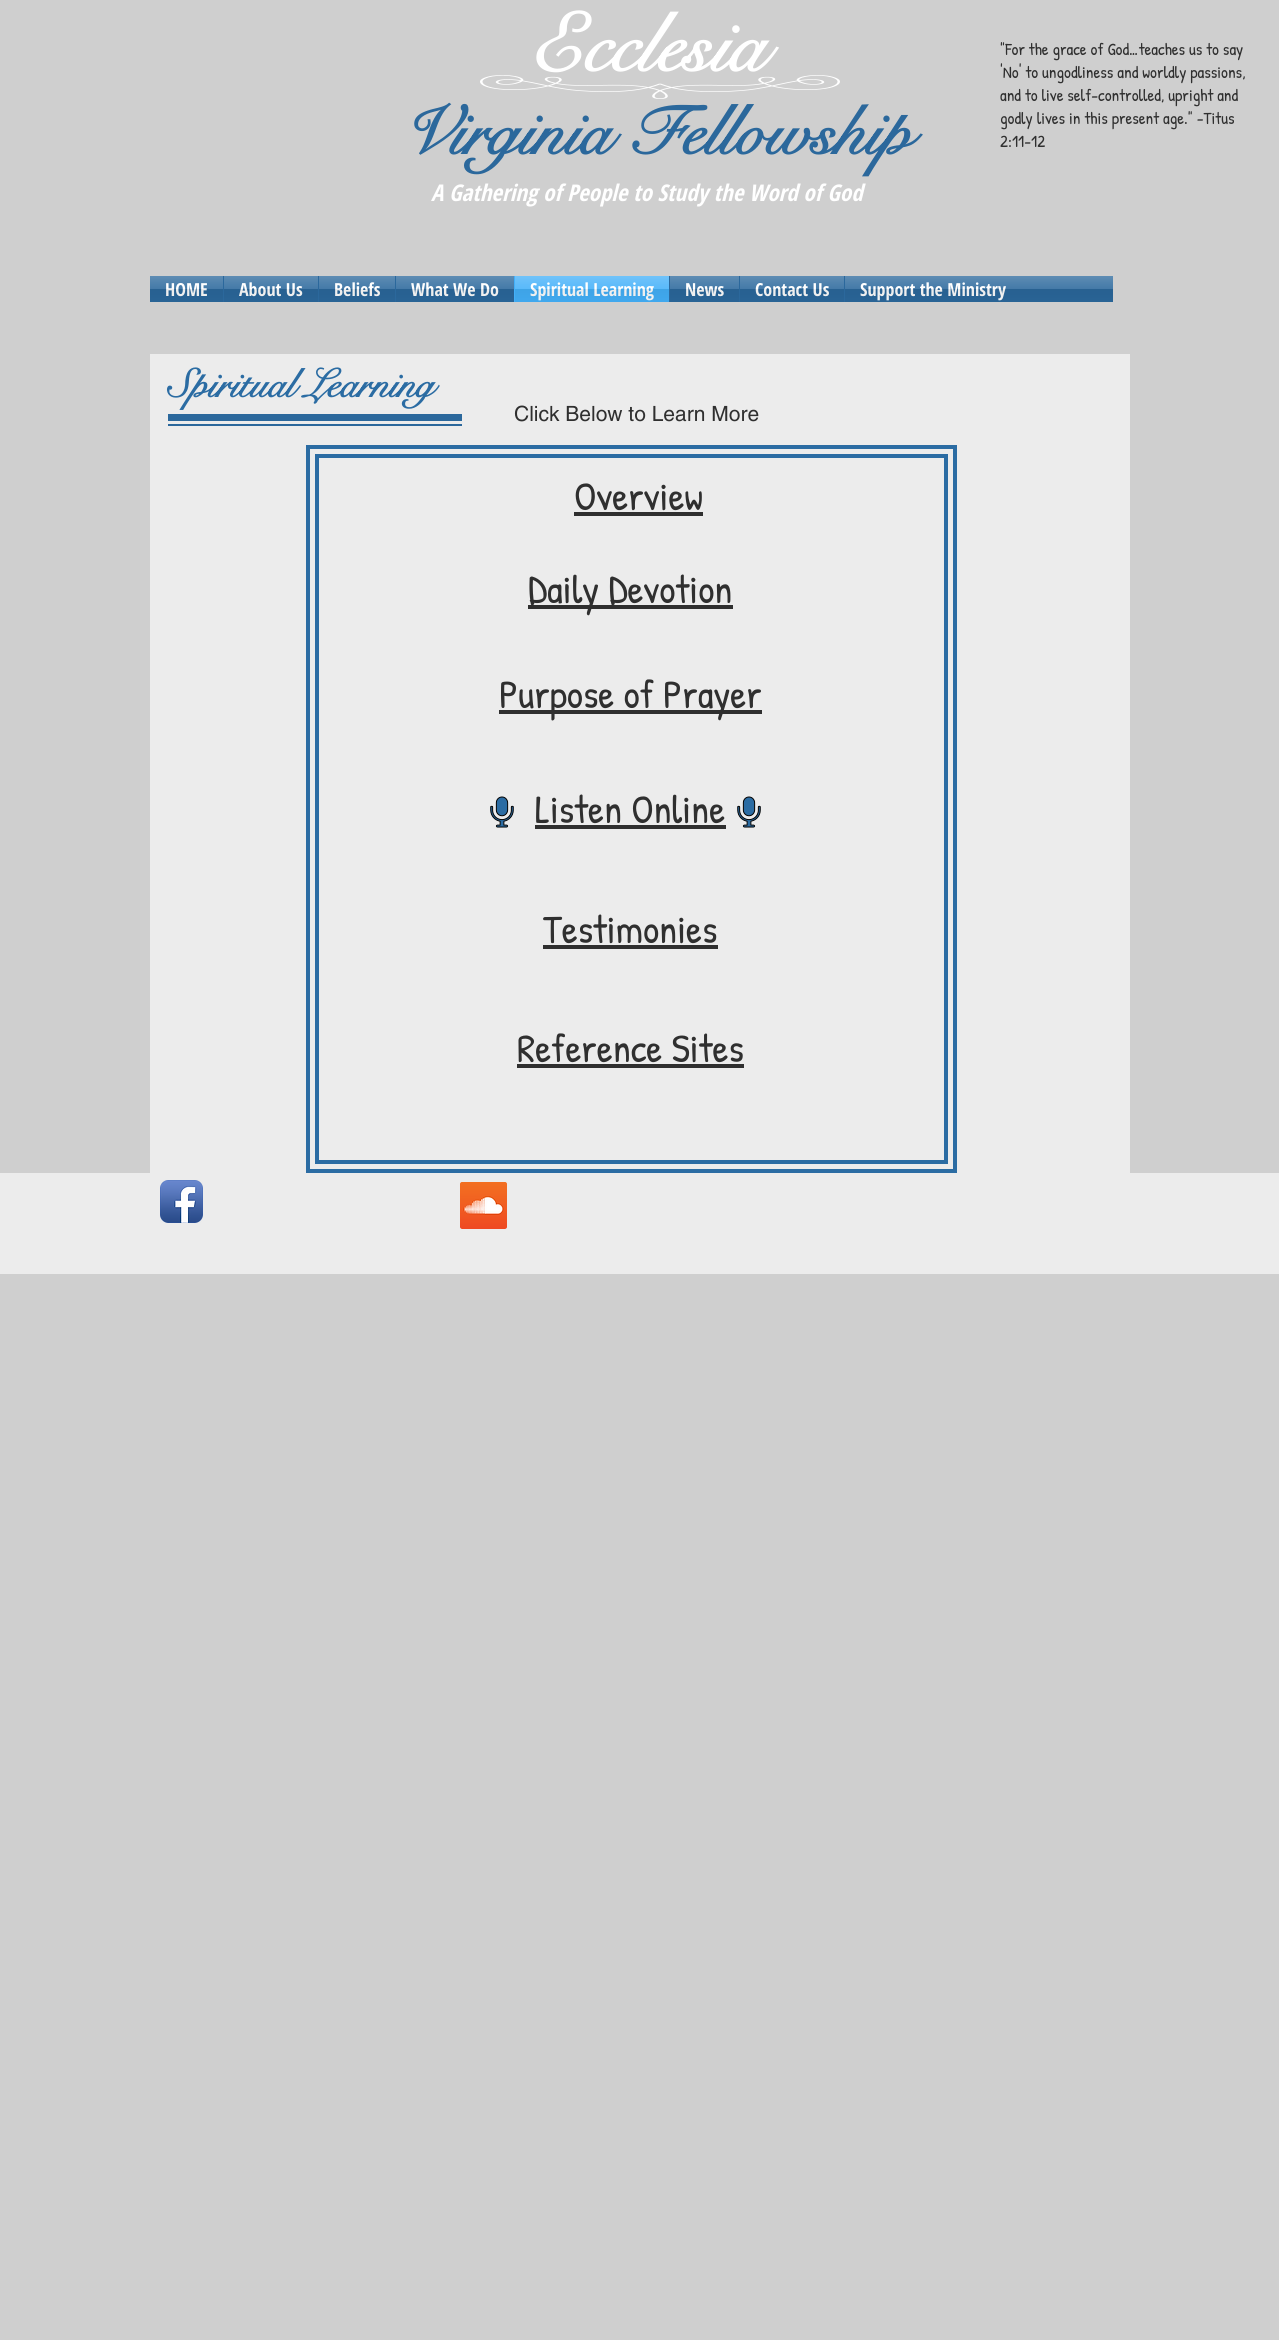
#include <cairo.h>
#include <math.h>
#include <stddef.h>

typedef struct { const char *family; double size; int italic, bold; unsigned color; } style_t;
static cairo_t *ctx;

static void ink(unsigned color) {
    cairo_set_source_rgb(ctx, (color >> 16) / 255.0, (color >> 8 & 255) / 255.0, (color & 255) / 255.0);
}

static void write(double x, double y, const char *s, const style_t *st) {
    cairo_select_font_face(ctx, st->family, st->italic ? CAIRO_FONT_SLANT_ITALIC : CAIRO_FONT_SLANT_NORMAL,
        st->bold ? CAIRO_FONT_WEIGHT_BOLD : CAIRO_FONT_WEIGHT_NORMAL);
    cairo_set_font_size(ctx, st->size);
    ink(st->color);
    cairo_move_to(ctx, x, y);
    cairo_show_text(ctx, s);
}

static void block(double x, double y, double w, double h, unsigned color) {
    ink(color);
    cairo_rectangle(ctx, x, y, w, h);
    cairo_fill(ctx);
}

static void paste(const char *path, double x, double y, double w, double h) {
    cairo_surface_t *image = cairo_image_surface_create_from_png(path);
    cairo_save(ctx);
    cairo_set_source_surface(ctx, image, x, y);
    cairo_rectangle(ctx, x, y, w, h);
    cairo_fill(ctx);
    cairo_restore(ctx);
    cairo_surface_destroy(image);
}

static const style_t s1 = {"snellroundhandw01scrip", 82, 0, 1, 0xffffff};
static const style_t s2 = {"snellroundhandw01scrip", 69, 0, 1, 0x2b689c};
static const style_t s3 = {"Patrick Hand", 17, 0, 0, 0x2f2f2f};
static const style_t s4 = {"Open Sans Condensed", 23, 1, 1, 0xffffff};
static const style_t s5 = {"Open Sans Condensed", 18, 0, 1, 0xffffff};
static const style_t s6 = {"snellroundhandw01scrip", 40, 0, 1, 0x2b6ca3};
static const style_t s7 = {"helvetica", 21, 0, 0, 0x2f2f2f};
static const style_t s8 = {"Patrick Hand", 40, 0, 0, 0x2f2f2f};

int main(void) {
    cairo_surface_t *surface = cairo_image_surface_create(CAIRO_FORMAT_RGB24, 1279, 2340);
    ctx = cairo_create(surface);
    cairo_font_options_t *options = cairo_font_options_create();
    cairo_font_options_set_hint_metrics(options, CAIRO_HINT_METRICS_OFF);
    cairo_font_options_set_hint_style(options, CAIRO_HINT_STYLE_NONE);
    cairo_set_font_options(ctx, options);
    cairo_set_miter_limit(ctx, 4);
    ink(0xcfcfcf);
    cairo_paint(ctx);
    write(529, 71, "Ecclesia", &s1);
    write(400, 154, "Virginia Fellowship", &s2);
    write(1000, 55, "\"For the grace of God…teaches us to say", &s3);
    write(1000, 78, "'No' to ungodliness and worldly passions,", &s3);
    write(1000, 101, "and to live self-controlled, upright and", &s3);
    write(1000, 124, "godly lives in this present age.\" -Titus", &s3);
    write(1000, 147, "2:11-12", &s3);
    paste("pic1.png", 480, 75, 360, 24);
    write(431, 201, "A Gathering of People to Study the Word of God", &s4);
    block(1021, 276, 92, 26, 0x2b689c);
    paste("pic2.png", 1021, 276, 92, 26);
    block(150, 276, 364, 26, 0x2b689c);
    write(165, 296, "HOME", &s5);
    paste("pic3.png", 150, 276, 73, 26);
    write(239, 296, "About Us", &s5);
    paste("pic4.png", 224, 276, 94, 26);
    write(334, 296, "Beliefs", &s5);
    paste("pic5.png", 319, 276, 76, 26);
    write(411, 296, "What We Do", &s5);
    paste("pic6.png", 396, 276, 118, 26);
    block(514, 276, 155, 26, 0x43b0f9);
    write(530, 296, "Spiritual Learning", &s5);
    paste("pic7.png", 515, 276, 154, 26);
    block(669, 276, 352, 26, 0x2b689c);
    write(685, 296, "News", &s5);
    paste("pic8.png", 670, 276, 69, 26);
    write(755, 296, "Contact Us", &s5);
    paste("pic9.png", 740, 276, 104, 26);
    write(860, 296, "Support the Ministry", &s5);
    paste("pic10.png", 845, 276, 176, 26);
    block(150, 354, 980, 819, 0xececec);
    write(168, 397, "Spiritual Learning", &s6);
    block(168, 414, 294, 7, 0x2b689c);
    block(168, 424, 294, 2, 0x2b689c);
    write(514, 421, "Click Below to Learn More", &s7);
    cairo_rectangle(ctx, 308, 447, 647, 724);
    ink(0x2b6ca3);
    cairo_set_line_width(ctx, 4);
    cairo_stroke(ctx);
    cairo_rectangle(ctx, 317, 456, 629, 706);
    cairo_stroke(ctx);
    write(574, 510, "Overview", &s8);
    block(574, 512, 129, 4, 0x2f2f2f);
    block(528, 605, 205, 4, 0x2f2f2f);
    write(528, 603, "Daily Devotion", &s8);
    block(499, 710, 263, 4, 0x2f2f2f);
    write(499, 708, "Purpose of Prayer", &s8);
    paste("pic11.png", 490, 796, 24, 32);
    write(535, 823, "Listen Online", &s8);
    block(535, 825, 191, 4, 0x2f2f2f);
    paste("pic11.png", 737, 796, 24, 32);
    write(543, 943, "Testimonies", &s8);
    block(543, 945, 175, 4, 0x2f2f2f);
    write(517, 1062, "Reference Sites", &s8);
    block(517, 1064, 227, 4, 0x2f2f2f);
    block(0, 1173, 1279, 101, 0xececec);
    paste("pic12.png", 160, 1180, 43, 43);
    paste("pic13.png", 460, 1182, 47, 47);
    cairo_surface_write_to_png(surface, "screenshot.png");
    cairo_font_options_destroy(options);
    cairo_destroy(ctx);
    cairo_surface_destroy(surface);
    return 0;
}
